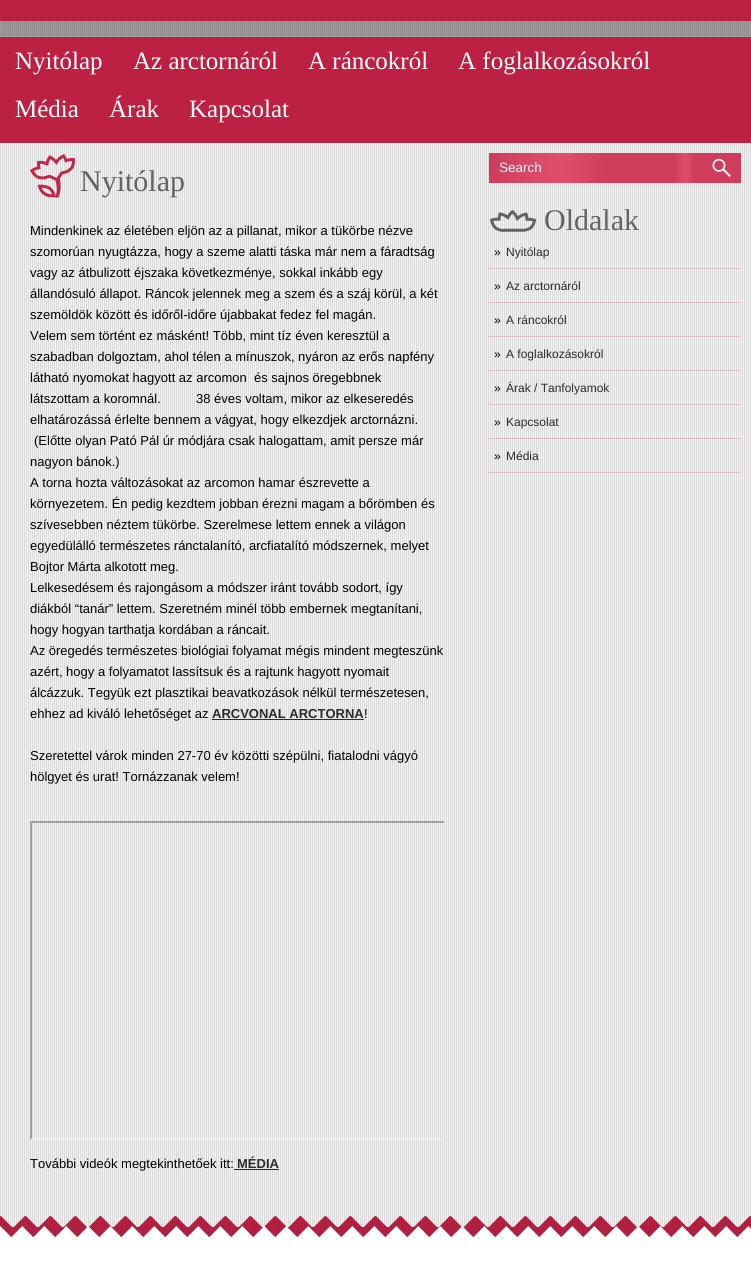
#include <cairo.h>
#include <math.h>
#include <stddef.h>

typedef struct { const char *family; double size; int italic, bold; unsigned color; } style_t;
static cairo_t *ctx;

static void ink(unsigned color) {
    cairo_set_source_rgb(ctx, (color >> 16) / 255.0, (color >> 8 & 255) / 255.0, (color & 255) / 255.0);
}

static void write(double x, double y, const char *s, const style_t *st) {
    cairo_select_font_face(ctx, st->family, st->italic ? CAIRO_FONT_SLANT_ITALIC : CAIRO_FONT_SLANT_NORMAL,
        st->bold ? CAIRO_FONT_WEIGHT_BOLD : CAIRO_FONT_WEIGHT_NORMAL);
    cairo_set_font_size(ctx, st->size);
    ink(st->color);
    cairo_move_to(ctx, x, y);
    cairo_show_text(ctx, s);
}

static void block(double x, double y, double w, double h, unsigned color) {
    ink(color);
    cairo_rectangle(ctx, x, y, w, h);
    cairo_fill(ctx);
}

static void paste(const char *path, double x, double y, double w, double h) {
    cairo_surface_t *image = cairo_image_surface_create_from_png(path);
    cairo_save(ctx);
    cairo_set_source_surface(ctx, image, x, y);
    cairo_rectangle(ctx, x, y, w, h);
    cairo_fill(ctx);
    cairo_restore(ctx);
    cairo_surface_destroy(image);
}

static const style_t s1 = {"Liberation Serif", 25, 0, 0, 0xffffff};
static const style_t s2 = {"Liberation Serif", 30, 0, 0, 0x636363};
static const style_t s3 = {"Liberation Sans", 13, 0, 0, 0x000000};
static const style_t s4 = {"Liberation Sans", 13, 0, 1, 0x2b2b2b};
static const style_t s5 = {"Liberation Sans", 13.5, 0, 0, 0xffffff};
static const style_t s6 = {"Liberation Sans", 12, 0, 0, 0x000000};
static const style_t s7 = {"Liberation Sans", 12, 0, 0, 0x2b2b2b};

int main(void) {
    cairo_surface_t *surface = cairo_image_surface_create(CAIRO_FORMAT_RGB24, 751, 1268);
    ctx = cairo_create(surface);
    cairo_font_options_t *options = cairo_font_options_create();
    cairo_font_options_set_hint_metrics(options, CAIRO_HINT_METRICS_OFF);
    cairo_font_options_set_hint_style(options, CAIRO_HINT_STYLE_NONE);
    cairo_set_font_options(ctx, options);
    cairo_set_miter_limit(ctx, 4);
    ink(0xffffff);
    cairo_paint(ctx);
    paste("pic1.png", 0, 21, 751, 1206);
    block(0, 0, 751, 21, 0xba2042);
    cairo_set_source_rgba(ctx, 0.267, 0.267, 0.267, 0.5);
    cairo_rectangle(ctx, 0, 21, 751, 16);
    cairo_fill(ctx);
    cairo_save(ctx);
    cairo_rectangle(ctx, 0, 21, 751, 16);
    cairo_clip(ctx);
    cairo_rectangle(ctx, 0.5, -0.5, 750, 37);
    cairo_set_source_rgba(ctx, 0.667, 0.667, 0.667, 0.5);
    cairo_set_line_width(ctx, 1);
    cairo_stroke(ctx);
    cairo_restore(ctx);
    block(0, 37, 751, 106, 0xbc2143);
    write(15, 69, "Nyitólap", &s1);
    write(133, 69, "Az arctornáról", &s1);
    write(308, 69, "A ráncokról", &s1);
    write(458, 69, "A foglalkozásokról", &s1);
    write(15, 117, "Média", &s1);
    write(109, 117, "Árak", &s1);
    write(189, 117, "Kapcsolat", &s1);
    paste("pic2.png", 30, 154, 45, 44);
    write(80, 191, "Nyitólap", &s2);
    write(30, 235, "Mindenkinek az életében eljön az a pillanat, mikor a tükörbe nézve", &s3);
    write(30, 256, "szomorúan nyugtázza, hogy a szeme alatti táska már nem a fáradtság", &s3);
    write(30, 277, "vagy az átbulizott éjszaka következménye, sokkal inkább egy", &s3);
    write(30, 298, "állandósuló állapot. Ráncok jelennek meg a szem és a száj körül, a két", &s3);
    write(30, 319, "szemöldök között és időről-időre újabbakat fedez fel magán.", &s3);
    write(30, 340, "Velem sem történt ez másként! Több, mint tíz éven keresztül a", &s3);
    write(30, 361, "szabadban dolgoztam, ahol télen a mínuszok, nyáron az erős napfény", &s3);
    write(30, 382, "látható nyomokat hagyott az arcomon  és sajnos öregebbnek", &s3);
    write(30, 403, "látszottam a koromnál.", &s3);
    write(196, 403, "38 éves voltam, mikor az elkeseredés", &s3);
    write(30, 424, "elhatározássá érlelte bennem a vágyat, hogy elkezdjek arctornázni.", &s3);
    write(34, 445, "(Előtte olyan Pató Pál úr módjára csak halogattam, amit persze már", &s3);
    write(30, 466, "nagyon bánok.)", &s3);
    write(30, 487, "A torna hozta változásokat az arcomon hamar észrevette a", &s3);
    write(30, 508, "környezetem. Én pedig kezdtem jobban érezni magam a bőrömben és", &s3);
    write(30, 529, "szívesebben néztem tükörbe. Szerelmese lettem ennek a világon", &s3);
    write(30, 550, "egyedülálló természetes ránctalanító, arcfiatalító módszernek, melyet", &s3);
    write(30, 571, "Bojtor Márta alkotott meg.", &s3);
    write(30, 592, "Lelkesedésem és rajongásom a módszer iránt tovább sodort, így", &s3);
    write(30, 613, "diákból “tanár” lettem. Szeretném minél több embernek megtanítani,", &s3);
    write(30, 634, "hogy hogyan tarthatja kordában a ráncait.", &s3);
    write(30, 655, "Az öregedés természetes biológiai folyamat mégis mindent megteszünk", &s3);
    write(30, 676, "azért, hogy a folyamatot lassítsuk és a rajtunk hagyott nyomait", &s3);
    write(30, 697, "álcázzuk. Tegyük ezt plasztikai beavatkozások nélkül természetesen,", &s3);
    write(30, 718, "ehhez ad kiváló lehetőséget az", &s3);
    write(212, 718, "ARCVONAL ARCTORNA", &s4);
    block(212, 719, 152, 1, 0x2b2b2b);
    write(364, 718, "!", &s3);
    write(30, 760, "Szeretettel várok minden 27-70 év közötti szépülni, fiatalodni vágyó", &s3);
    write(30, 781, "hölgyet és urat! Tornázzanak velem!", &s3);
    cairo_save(ctx);
    cairo_rectangle(ctx, 30, 220, 414, 987);
    cairo_clip(ctx);
    ink(0x9f9f9f);
    cairo_new_path(ctx);
    cairo_move_to(ctx, 30, 821);
    cairo_line_to(ctx, 454, 821);
    cairo_line_to(ctx, 452, 823);
    cairo_line_to(ctx, 32, 823);
    cairo_close_path(ctx);
    cairo_fill(ctx);
    ink(0xeeeeee);
    cairo_new_path(ctx);
    cairo_move_to(ctx, 454, 1140);
    cairo_line_to(ctx, 30, 1140);
    cairo_line_to(ctx, 32, 1138);
    cairo_line_to(ctx, 452, 1138);
    cairo_close_path(ctx);
    cairo_fill(ctx);
    cairo_restore(ctx);
    ink(0x9f9f9f);
    cairo_new_path(ctx);
    cairo_move_to(ctx, 30, 1140);
    cairo_line_to(ctx, 30, 821);
    cairo_line_to(ctx, 32, 823);
    cairo_line_to(ctx, 32, 1138);
    cairo_close_path(ctx);
    cairo_fill(ctx);
    write(30, 1168, "További videók megtekinthetőek itt:", &s3);
    write(237, 1168, "MÉDIA", &s4);
    block(234, 1169, 45, 1, 0x2b2b2b);
    paste("pic3.png", 489, 153, 252, 30);
    write(499, 172, "Search", &s5);
    paste("pic4.png", 712, 158, 19, 19);
    paste("pic5.png", 489, 209, 48, 23);
    write(544, 230, "Oldalak", &s2);
    cairo_set_source_rgba(ctx, 0.745, 0.137, 0.255, 0.2);
    cairo_rectangle(ctx, 489, 268, 252, 1);
    cairo_fill(ctx);
    write(494, 256, "»", &s6);
    write(506, 256, "Nyitólap", &s7);
    cairo_set_source_rgba(ctx, 0.745, 0.137, 0.255, 0.2);
    cairo_rectangle(ctx, 489, 302, 252, 1);
    cairo_fill(ctx);
    write(494, 290, "»", &s6);
    write(506, 290, "Az arctornáról", &s7);
    cairo_set_source_rgba(ctx, 0.745, 0.137, 0.255, 0.2);
    cairo_rectangle(ctx, 489, 336, 252, 1);
    cairo_fill(ctx);
    write(494, 324, "»", &s6);
    write(506, 324, "A ráncokról", &s7);
    cairo_set_source_rgba(ctx, 0.745, 0.137, 0.255, 0.2);
    cairo_rectangle(ctx, 489, 370, 252, 1);
    cairo_fill(ctx);
    write(494, 358, "»", &s6);
    write(506, 358, "A foglalkozásokról", &s7);
    cairo_set_source_rgba(ctx, 0.745, 0.137, 0.255, 0.2);
    cairo_rectangle(ctx, 489, 404, 252, 1);
    cairo_fill(ctx);
    write(494, 392, "»", &s6);
    write(506, 392, "Árak / Tanfolyamok", &s7);
    cairo_set_source_rgba(ctx, 0.745, 0.137, 0.255, 0.2);
    cairo_rectangle(ctx, 489, 438, 252, 1);
    cairo_fill(ctx);
    write(494, 426, "»", &s6);
    write(506, 426, "Kapcsolat", &s7);
    cairo_set_source_rgba(ctx, 0.745, 0.137, 0.255, 0.2);
    cairo_rectangle(ctx, 489, 472, 252, 1);
    cairo_fill(ctx);
    write(494, 460, "»", &s6);
    write(506, 460, "Média", &s7);
    paste("pic6.png", 0, 1216, 751, 11);
    paste("pic8.png", 1, 1227, 750, 10);
    paste("pic7.png", 0, 1226, 751, 11);
    cairo_surface_write_to_png(surface, "screenshot.png");
    cairo_font_options_destroy(options);
    cairo_destroy(ctx);
    cairo_surface_destroy(surface);
    return 0;
}
